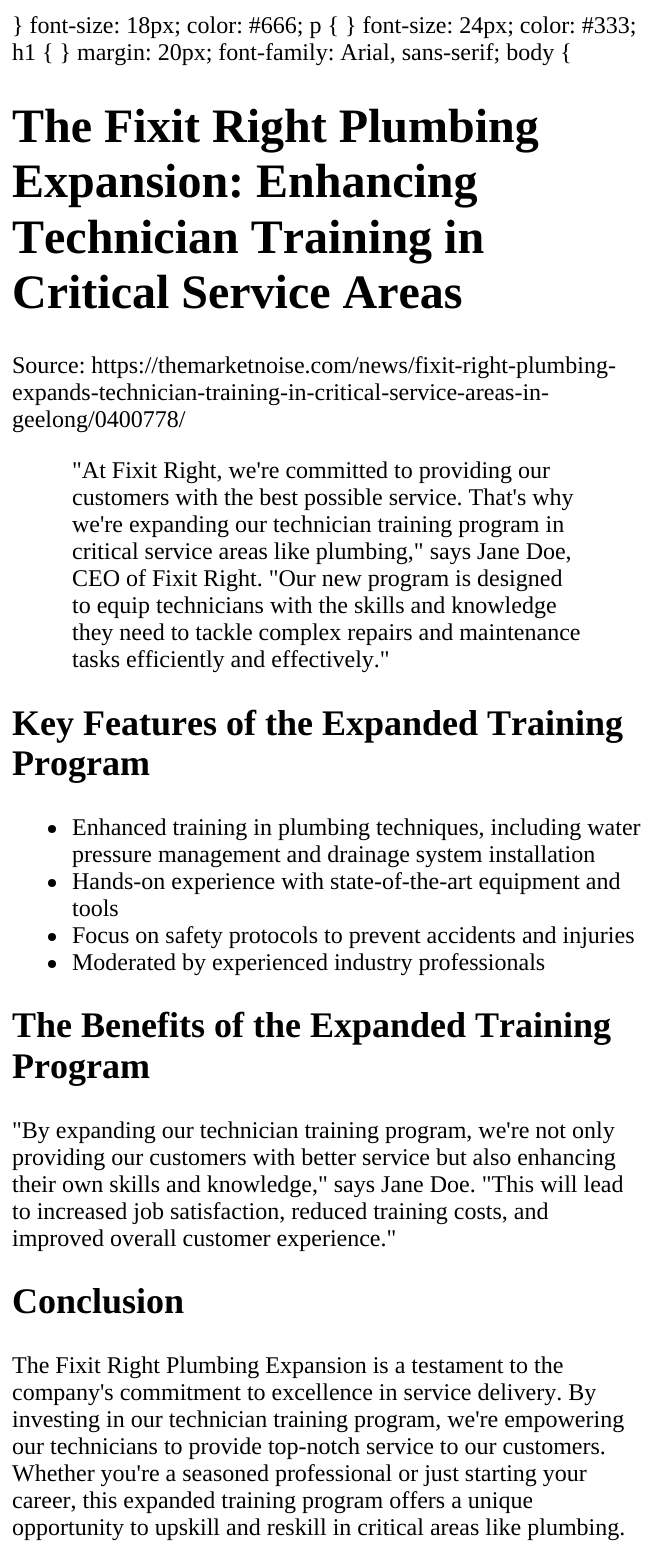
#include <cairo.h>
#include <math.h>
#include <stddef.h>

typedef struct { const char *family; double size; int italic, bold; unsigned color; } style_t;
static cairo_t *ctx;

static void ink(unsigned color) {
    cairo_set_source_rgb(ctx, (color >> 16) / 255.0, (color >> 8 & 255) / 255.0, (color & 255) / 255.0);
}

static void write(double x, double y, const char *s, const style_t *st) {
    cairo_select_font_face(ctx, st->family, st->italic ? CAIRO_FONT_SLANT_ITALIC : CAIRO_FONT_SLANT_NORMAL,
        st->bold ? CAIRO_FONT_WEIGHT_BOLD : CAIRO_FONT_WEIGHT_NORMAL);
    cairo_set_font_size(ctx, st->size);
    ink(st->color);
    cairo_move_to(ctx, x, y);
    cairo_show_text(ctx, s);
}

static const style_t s1 = {"Liberation Serif", 24, 0, 0, 0x000000};
static const style_t s2 = {"Liberation Serif", 48, 0, 1, 0x000000};
static const style_t s3 = {"Liberation Serif", 36, 0, 1, 0x000000};

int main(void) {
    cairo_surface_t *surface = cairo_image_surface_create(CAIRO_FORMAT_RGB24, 656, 1566);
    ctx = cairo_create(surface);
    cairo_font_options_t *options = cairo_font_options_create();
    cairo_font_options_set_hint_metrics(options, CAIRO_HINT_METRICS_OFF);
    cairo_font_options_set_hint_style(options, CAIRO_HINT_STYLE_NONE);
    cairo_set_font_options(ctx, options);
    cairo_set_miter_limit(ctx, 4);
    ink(0xffffff);
    cairo_paint(ctx);
    write(12, 33, "} font-size: 18px; color: #666; p { } font-size: 24px; color: #333;", &s1);
    write(12, 60, "h1 { } margin: 20px; font-family: Arial, sans-serif; body {", &s1);
    write(12, 142, "The Fixit Right Plumbing", &s2);
    write(12, 197, "Expansion: Enhancing", &s2);
    write(12, 253, "Technician Training in", &s2);
    write(12, 308, "Critical Service Areas", &s2);
    write(12, 373, "Source: https://themarketnoise.com/news/fixit-right-plumbing-", &s1);
    write(12, 400, "expands-technician-training-in-critical-service-areas-in-", &s1);
    write(12, 427, "geelong/0400778/", &s1);
    write(72, 478, "\"At Fixit Right, we're committed to providing our", &s1);
    write(72, 505, "customers with the best possible service. That's why", &s1);
    write(72, 532, "we're expanding our technician training program in", &s1);
    write(72, 559, "critical service areas like plumbing,\" says Jane Doe,", &s1);
    write(72, 586, "CEO of Fixit Right. \"Our new program is designed", &s1);
    write(72, 613, "to equip technicians with the skills and knowledge", &s1);
    write(72, 640, "they need to tackle complex repairs and maintenance", &s1);
    write(72, 667, "tasks efficiently and effectively.\"", &s1);
    write(12, 735, "Key Features of the Expanded Training", &s3);
    write(12, 775, "Program", &s3);
    cairo_new_path(ctx);
    cairo_arc(ctx, 52, 829, 4, 0, 2 * M_PI);
    cairo_fill(ctx);
    write(72, 835, "Enhanced training in plumbing techniques, including water", &s1);
    write(72, 862, "pressure management and drainage system installation", &s1);
    cairo_new_path(ctx);
    cairo_arc(ctx, 52, 883, 4, 0, 2 * M_PI);
    cairo_fill(ctx);
    write(72, 889, "Hands-on experience with state-of-the-art equipment and", &s1);
    write(72, 916, "tools", &s1);
    cairo_new_path(ctx);
    cairo_arc(ctx, 52, 937, 4, 0, 2 * M_PI);
    cairo_fill(ctx);
    write(72, 943, "Focus on safety protocols to prevent accidents and injuries", &s1);
    cairo_new_path(ctx);
    cairo_arc(ctx, 52, 964, 4, 0, 2 * M_PI);
    cairo_fill(ctx);
    write(72, 970, "Moderated by experienced industry professionals", &s1);
    write(12, 1037, "The Benefits of the Expanded Training", &s3);
    write(12, 1078, "Program", &s3);
    write(12, 1138, "\"By expanding our technician training program, we're not only", &s1);
    write(12, 1165, "providing our customers with better service but also enhancing", &s1);
    write(12, 1192, "their own skills and knowledge,\" says Jane Doe. \"This will lead", &s1);
    write(12, 1219, "to increased job satisfaction, reduced training costs, and", &s1);
    write(12, 1246, "improved overall customer experience.\"", &s1);
    write(12, 1313, "Conclusion", &s3);
    write(12, 1373, "The Fixit Right Plumbing Expansion is a testament to the", &s1);
    write(12, 1400, "company's commitment to excellence in service delivery. By", &s1);
    write(12, 1427, "investing in our technician training program, we're empowering", &s1);
    write(12, 1454, "our technicians to provide top-notch service to our customers.", &s1);
    write(12, 1481, "Whether you're a seasoned professional or just starting your", &s1);
    write(12, 1508, "career, this expanded training program offers a unique", &s1);
    write(12, 1535, "opportunity to upskill and reskill in critical areas like plumbing.", &s1);
    cairo_surface_write_to_png(surface, "screenshot.png");
    cairo_font_options_destroy(options);
    cairo_destroy(ctx);
    cairo_surface_destroy(surface);
    return 0;
}
